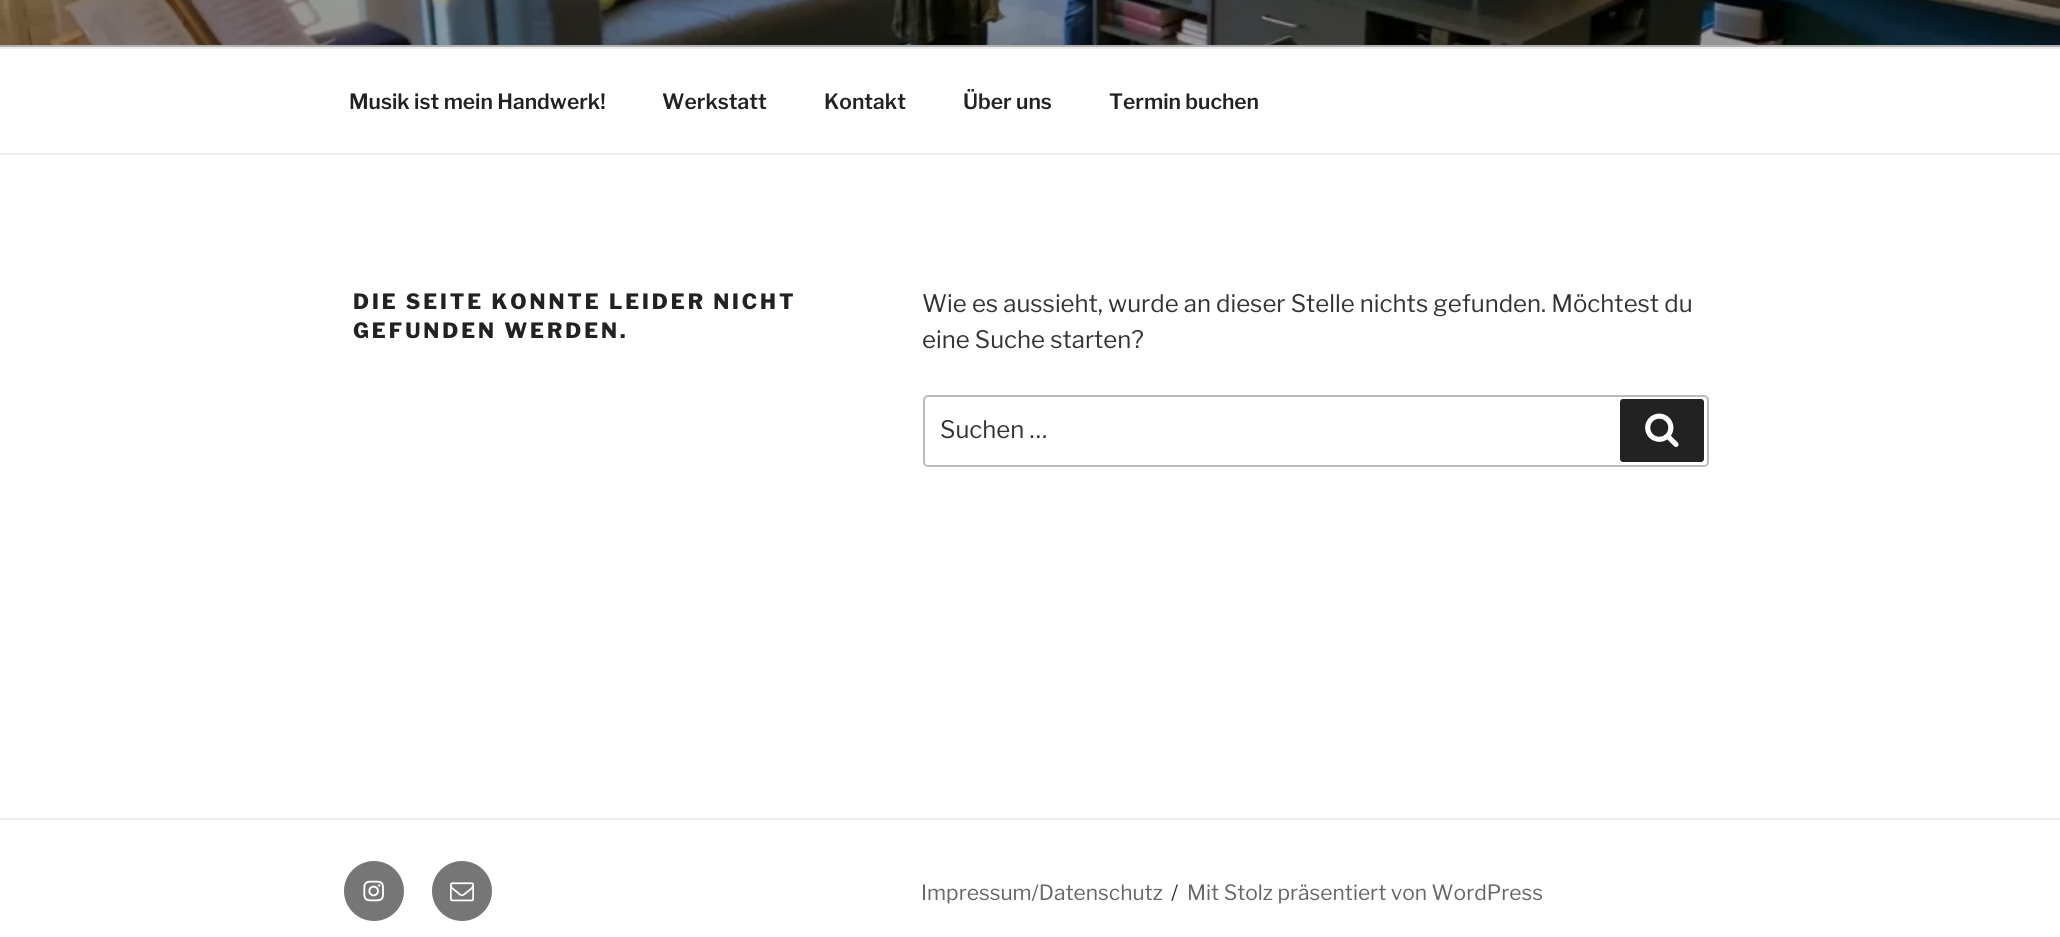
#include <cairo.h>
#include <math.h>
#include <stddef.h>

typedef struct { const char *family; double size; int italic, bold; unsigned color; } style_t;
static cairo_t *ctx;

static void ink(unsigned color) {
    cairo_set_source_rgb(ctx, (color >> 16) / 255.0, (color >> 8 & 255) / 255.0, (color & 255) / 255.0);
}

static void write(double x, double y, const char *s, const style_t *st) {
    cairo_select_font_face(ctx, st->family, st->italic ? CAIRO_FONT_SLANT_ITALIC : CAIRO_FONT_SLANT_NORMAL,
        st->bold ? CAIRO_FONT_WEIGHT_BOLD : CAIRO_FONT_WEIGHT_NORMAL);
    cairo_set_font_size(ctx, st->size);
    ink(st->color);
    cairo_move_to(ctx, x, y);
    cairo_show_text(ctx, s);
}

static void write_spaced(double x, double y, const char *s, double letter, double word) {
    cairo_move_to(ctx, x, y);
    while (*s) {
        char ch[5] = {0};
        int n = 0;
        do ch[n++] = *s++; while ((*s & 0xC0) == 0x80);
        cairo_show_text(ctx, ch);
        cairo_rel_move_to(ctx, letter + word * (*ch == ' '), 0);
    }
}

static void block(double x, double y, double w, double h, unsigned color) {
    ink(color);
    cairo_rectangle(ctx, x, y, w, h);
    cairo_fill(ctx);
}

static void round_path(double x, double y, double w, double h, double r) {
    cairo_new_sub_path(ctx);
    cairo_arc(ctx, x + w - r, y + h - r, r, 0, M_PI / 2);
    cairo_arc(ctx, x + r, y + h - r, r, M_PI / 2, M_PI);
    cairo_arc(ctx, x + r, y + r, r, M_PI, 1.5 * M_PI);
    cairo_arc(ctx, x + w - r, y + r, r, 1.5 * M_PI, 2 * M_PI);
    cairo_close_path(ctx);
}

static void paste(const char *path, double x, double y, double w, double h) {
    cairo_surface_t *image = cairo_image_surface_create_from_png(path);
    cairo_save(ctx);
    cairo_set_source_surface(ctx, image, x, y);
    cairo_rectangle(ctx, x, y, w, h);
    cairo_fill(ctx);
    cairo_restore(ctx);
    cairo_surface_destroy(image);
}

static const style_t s1 = {"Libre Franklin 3 Thin", 21, 0, 0, 0x222222};
static const style_t s2 = {"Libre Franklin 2 Thin", 24, 0, 0, 0x333333};
static const style_t s3 = {"Libre Franklin 2 Thin", 21, 0, 0, 0x666666};
static const style_t s4 = {"Libre Franklin 2 Thin", 21, 0, 0, 0x333333};

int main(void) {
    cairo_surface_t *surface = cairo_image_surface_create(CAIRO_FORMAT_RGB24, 2060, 937);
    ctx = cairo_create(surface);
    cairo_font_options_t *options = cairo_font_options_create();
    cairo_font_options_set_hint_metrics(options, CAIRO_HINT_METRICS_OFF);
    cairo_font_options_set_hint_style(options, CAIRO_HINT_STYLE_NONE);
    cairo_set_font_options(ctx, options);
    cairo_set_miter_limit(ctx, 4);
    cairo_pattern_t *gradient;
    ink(0xffffff);
    cairo_paint(ctx);
    block(0, 45, 2060, 2, 0xfafafa);
    paste("pic1.png", 0, 0, 2060, 45);
    gradient = cairo_pattern_create_linear(1031, -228, 1031, 47);
    cairo_pattern_add_color_stop_rgba(gradient, 0, 0, 0, 0, 0);
    cairo_pattern_add_color_stop_rgba(gradient, 0.75, 0, 0, 0, 0.3);
    cairo_pattern_add_color_stop_rgba(gradient, 1, 0, 0, 0, 0.3);
    cairo_set_source(ctx, gradient);
    cairo_pattern_destroy(gradient);
    cairo_rectangle(ctx, 0, 0, 2060, 47);
    cairo_fill(ctx);
    block(0, 47, 2060, 2, 0xeeeeee);
    block(0, 153, 2060, 2, 0xeeeeee);
    write(349, 109, "Musik ist mein Handwerk!", &s1);
    write(662, 109, "Werkstatt", &s1);
    write(824, 109, "Kontakt", &s1);
    write(963, 109, "Über uns", &s1);
    write(1109, 109, "Termin buchen", &s1);
    cairo_select_font_face(ctx, "Libre Franklin Thin", CAIRO_FONT_SLANT_NORMAL, CAIRO_FONT_WEIGHT_NORMAL);
    write_spaced(353, 309, "DIE SEITE KONNTE LEIDER NICHT", 2.95, 0);
    write_spaced(353, 338, "GEFUNDEN WERDEN.", 2.95, 0);
    write(922, 312, "Wie es aussieht, wurde an dieser Stelle nichts gefunden. Möchtest du", &s2);
    write(922, 348, "eine Suche starten?", &s2);
    round_path(924, 396, 784, 70, 4);
    ink(0xbbbbbb);
    cairo_stroke(ctx);
    write(940, 438, "Suchen …", &s2);
    ink(0x222222);
    round_path(1620, 399, 84, 63, 3);
    cairo_fill(ctx);
    paste("pic2.png", 1645, 413, 34, 34);
    block(0, 818, 2060, 2, 0xeeeeee);
    ink(0x767676);
    cairo_arc(ctx, 374, 891, 30, 0, 2 * M_PI);
    cairo_fill(ctx);
    paste("pic3.png", 363, 880, 21, 22);
    cairo_arc(ctx, 462, 891, 30, 0, 2 * M_PI);
    cairo_fill(ctx);
    paste("pic4.png", 450, 882, 24, 20);
    write(921, 900, "Impressum/Datenschutz", &s3);
    write(1171, 900, "/", &s4);
    write(1187, 900, "Mit Stolz präsentiert von WordPress", &s3);
    cairo_surface_write_to_png(surface, "screenshot.png");
    cairo_font_options_destroy(options);
    cairo_destroy(ctx);
    cairo_surface_destroy(surface);
    return 0;
}
